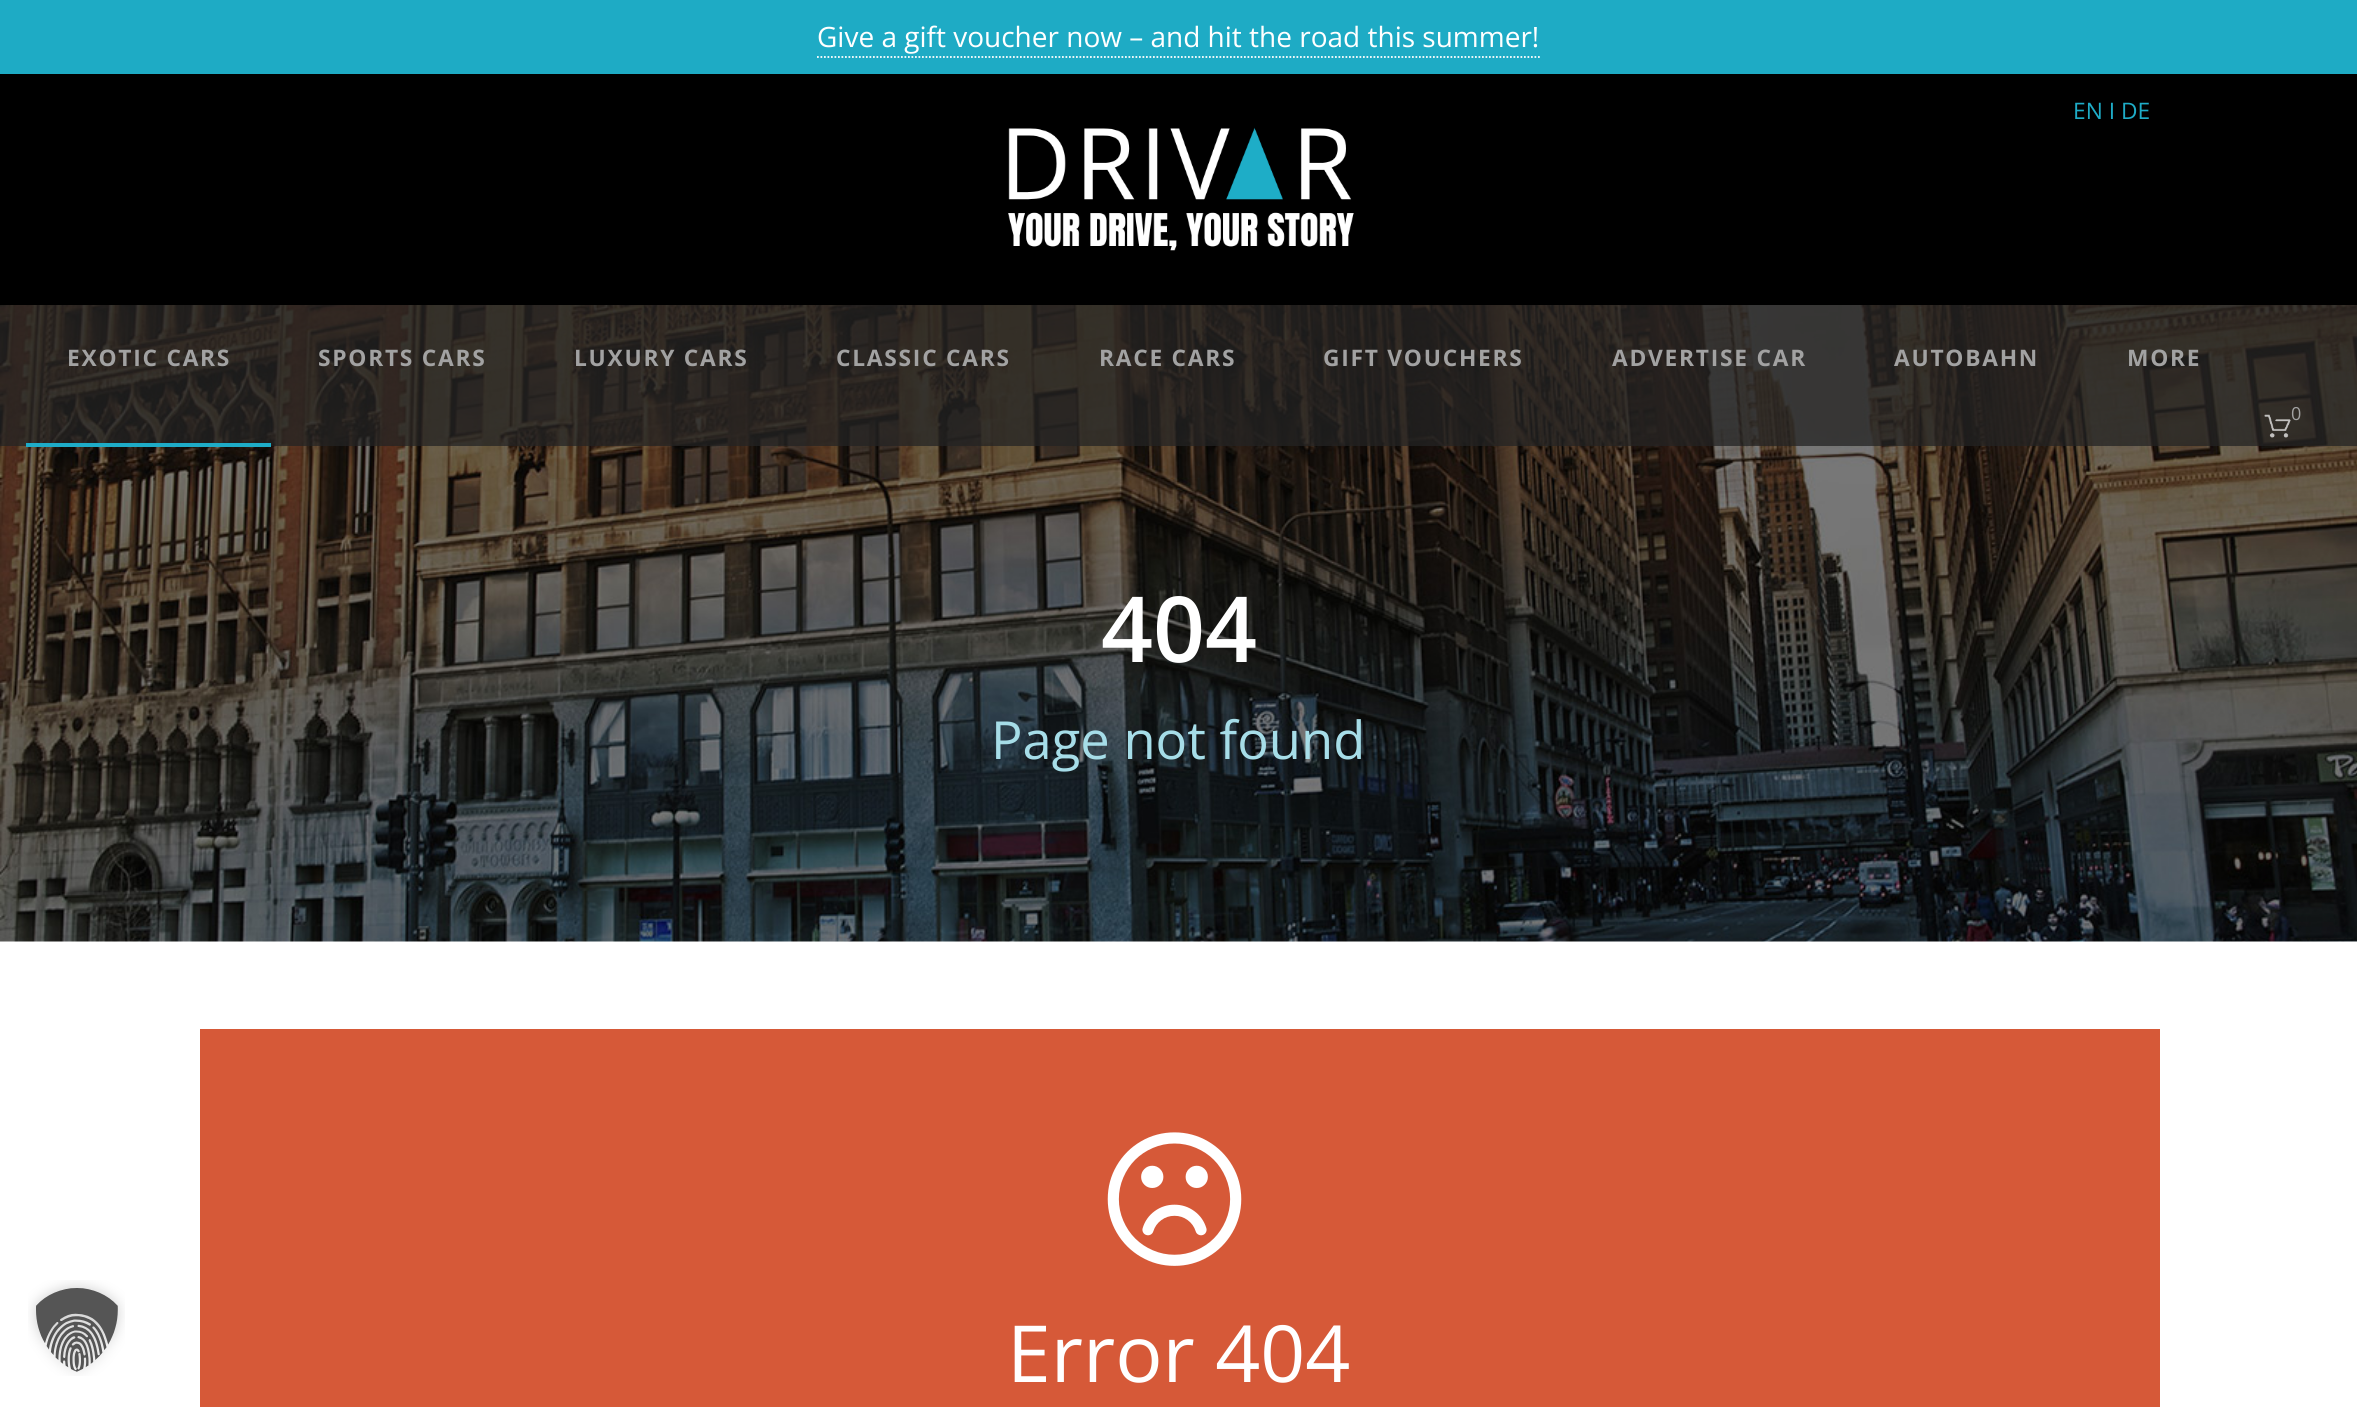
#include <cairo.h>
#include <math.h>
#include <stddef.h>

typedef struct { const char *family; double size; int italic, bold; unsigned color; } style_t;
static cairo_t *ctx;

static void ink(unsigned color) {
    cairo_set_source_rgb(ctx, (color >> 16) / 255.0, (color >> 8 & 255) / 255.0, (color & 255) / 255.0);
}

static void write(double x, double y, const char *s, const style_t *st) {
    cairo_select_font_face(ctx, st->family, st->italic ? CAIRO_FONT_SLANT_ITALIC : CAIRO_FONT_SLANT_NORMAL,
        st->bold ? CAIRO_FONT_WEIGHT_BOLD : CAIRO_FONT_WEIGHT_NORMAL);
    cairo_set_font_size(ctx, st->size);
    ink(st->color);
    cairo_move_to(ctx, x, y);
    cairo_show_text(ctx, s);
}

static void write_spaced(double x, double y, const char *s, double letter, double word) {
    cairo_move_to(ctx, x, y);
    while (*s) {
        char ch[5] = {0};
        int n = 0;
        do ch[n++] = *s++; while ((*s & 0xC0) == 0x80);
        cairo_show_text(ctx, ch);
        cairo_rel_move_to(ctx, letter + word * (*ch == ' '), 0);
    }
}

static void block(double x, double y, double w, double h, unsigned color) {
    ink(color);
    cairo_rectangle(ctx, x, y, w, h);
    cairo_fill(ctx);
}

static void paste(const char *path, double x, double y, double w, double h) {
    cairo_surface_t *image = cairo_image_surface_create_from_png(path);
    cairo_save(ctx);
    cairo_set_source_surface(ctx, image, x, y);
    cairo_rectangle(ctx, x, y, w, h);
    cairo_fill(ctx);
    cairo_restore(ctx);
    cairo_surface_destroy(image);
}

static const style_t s1 = {"Open Sans", 28, 0, 0, 0xffffff};
static const style_t s2 = {"Open Sans", 22.75, 0, 0, 0x1eacc7};
static const style_t s3 = {"Open Sans", 18, 0, 0, 0xa2a2a2};
static const style_t s4 = {"Open Sans SemiBold", 91, 0, 0, 0xffffff};
static const style_t s5 = {"Open Sans", 52.5, 0, 0, 0xa6dde8};
static const style_t s6 = {"Open Sans", 78.75, 0, 0, 0xffffff};

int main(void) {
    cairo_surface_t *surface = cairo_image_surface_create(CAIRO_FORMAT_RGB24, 2357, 1407);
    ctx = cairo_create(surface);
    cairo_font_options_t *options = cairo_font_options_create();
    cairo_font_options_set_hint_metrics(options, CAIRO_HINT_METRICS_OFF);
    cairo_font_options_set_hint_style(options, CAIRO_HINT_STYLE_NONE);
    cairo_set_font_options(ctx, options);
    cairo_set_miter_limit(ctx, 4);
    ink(0xffffff);
    cairo_paint(ctx);
    block(0, 74, 2357, 231, 0x000000);
    block(0, 0, 2357, 74, 0x1eabc5);
    write(817, 47, "Give a gift voucher now – and hit the road this summer!", &s1);
    cairo_new_path(ctx);
    cairo_move_to(ctx, 817, 57);
    cairo_line_to(ctx, 1540, 57);
    cairo_set_line_width(ctx, 1.8);
    cairo_set_dash(ctx, (double[]){1.75, 1.75}, 2, 0);
    cairo_stroke(ctx);
    write(2073, 119, "EN I DE", &s2);
    paste("pic1.png", 1008, 127, 346, 124);
    paste("pic3.png", 0, 305, 2357, 637);
    cairo_set_source_rgba(ctx, 0.137, 0.137, 0.137, 0.75);
    cairo_rectangle(ctx, 0, 305, 2357, 141);
    cairo_fill(ctx);
    cairo_select_font_face(ctx, "Open Sans", CAIRO_FONT_SLANT_NORMAL, CAIRO_FONT_WEIGHT_BOLD);
    ink(0xa2a2a2);
    write_spaced(67, 366, "EXOTIC CARS", 1.75, 0);
    write_spaced(318, 366, "SPORTS CARS", 1.75, 0);
    write_spaced(574, 366, "LUXURY CARS", 1.75, 0);
    write_spaced(836, 366, "CLASSIC CARS", 1.75, 0);
    write_spaced(1099, 366, "RACE CARS", 1.75, 0);
    write_spaced(1323, 366, "GIFT VOUCHERS", 1.75, 0);
    write_spaced(1612, 366, "ADVERTISE CAR", 1.75, 0);
    write_spaced(1894, 366, "AUTOBAHN", 1.75, 0);
    write_spaced(2127, 366, "MORE", 1.75, 0);
    paste("pic2.png", 2264, 414, 27, 24);
    write(2291, 420, "0", &s3);
    block(26, 443, 245, 4, 0x1eacc7);
    write(1101, 662, "404", &s4);
    write(991, 759, "Page not found", &s5);
    block(200, 1029, 1960, 378, 0xd65938);
    paste("pic4.png", 1107, 1132, 135, 134);
    write(1007, 1382, "Error 404", &s6);
    paste("pic5.png", 28, 1280, 97, 96);
    cairo_surface_write_to_png(surface, "screenshot.png");
    cairo_font_options_destroy(options);
    cairo_destroy(ctx);
    cairo_surface_destroy(surface);
    return 0;
}
